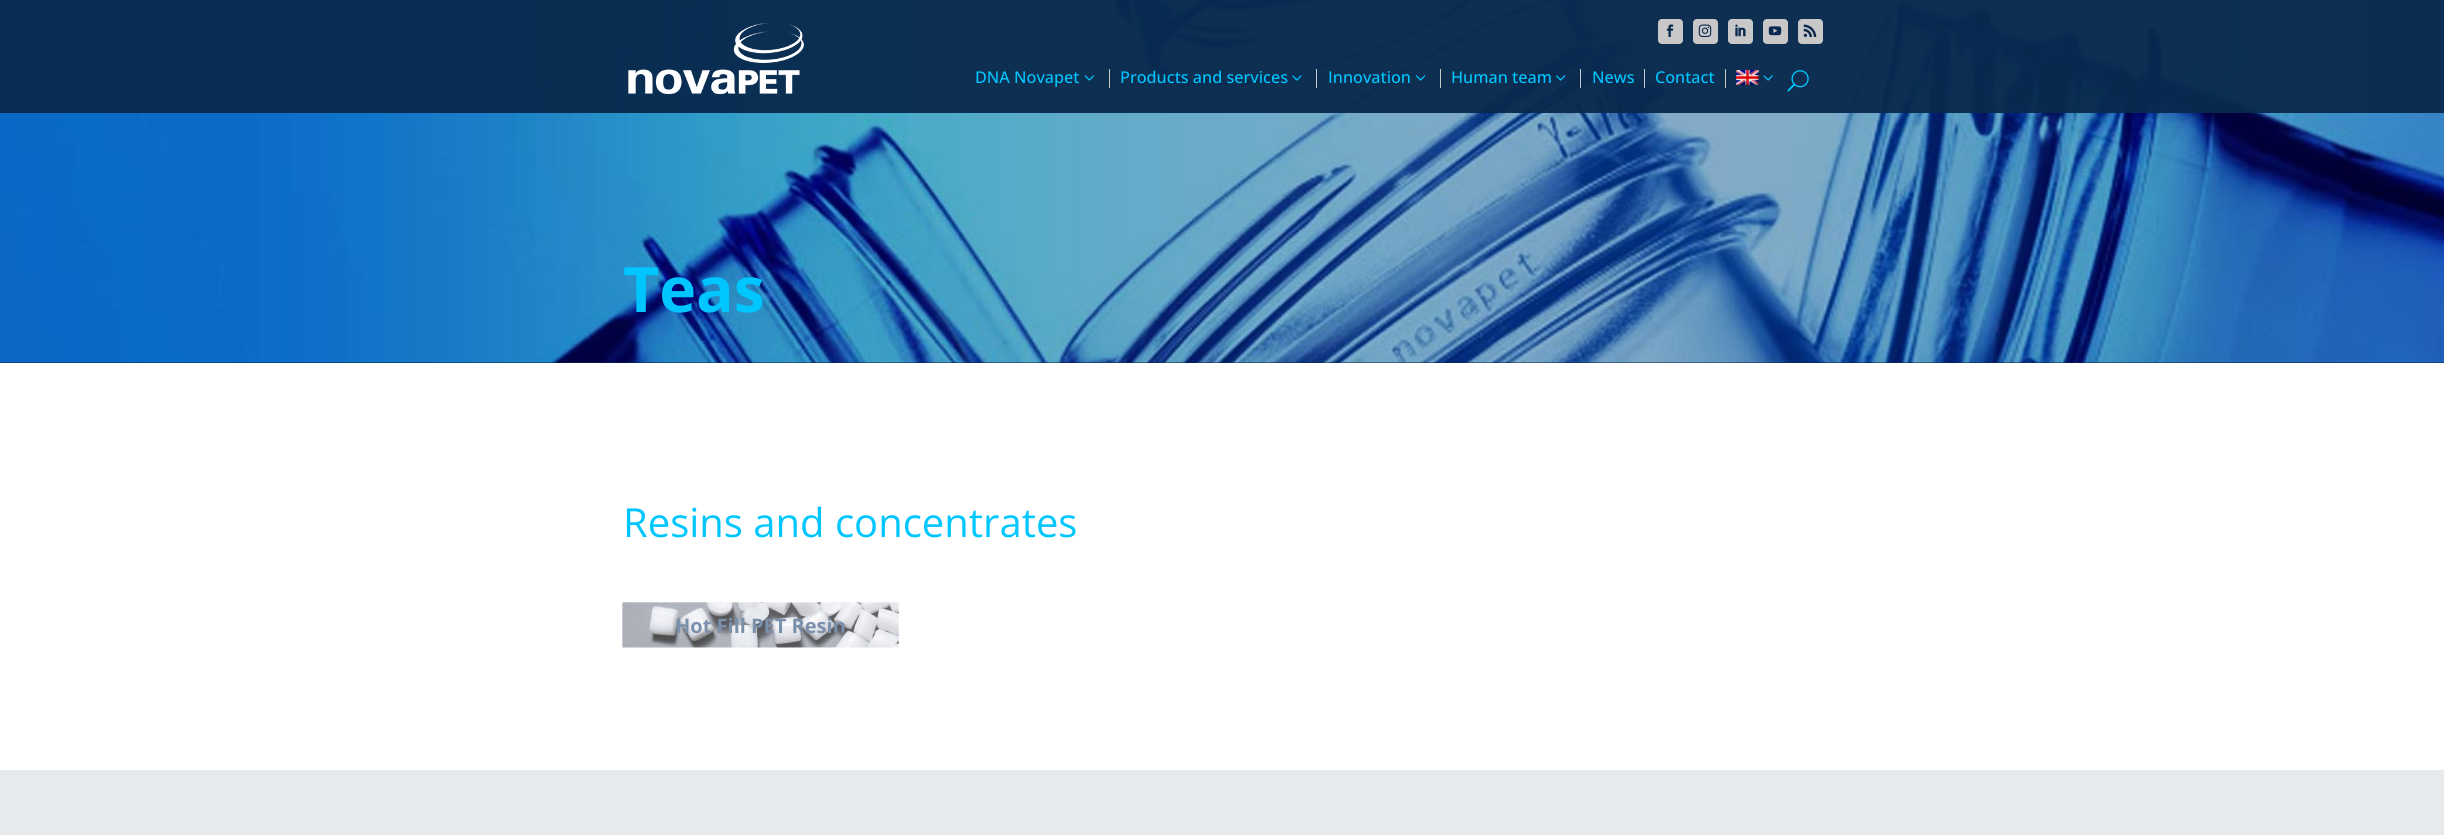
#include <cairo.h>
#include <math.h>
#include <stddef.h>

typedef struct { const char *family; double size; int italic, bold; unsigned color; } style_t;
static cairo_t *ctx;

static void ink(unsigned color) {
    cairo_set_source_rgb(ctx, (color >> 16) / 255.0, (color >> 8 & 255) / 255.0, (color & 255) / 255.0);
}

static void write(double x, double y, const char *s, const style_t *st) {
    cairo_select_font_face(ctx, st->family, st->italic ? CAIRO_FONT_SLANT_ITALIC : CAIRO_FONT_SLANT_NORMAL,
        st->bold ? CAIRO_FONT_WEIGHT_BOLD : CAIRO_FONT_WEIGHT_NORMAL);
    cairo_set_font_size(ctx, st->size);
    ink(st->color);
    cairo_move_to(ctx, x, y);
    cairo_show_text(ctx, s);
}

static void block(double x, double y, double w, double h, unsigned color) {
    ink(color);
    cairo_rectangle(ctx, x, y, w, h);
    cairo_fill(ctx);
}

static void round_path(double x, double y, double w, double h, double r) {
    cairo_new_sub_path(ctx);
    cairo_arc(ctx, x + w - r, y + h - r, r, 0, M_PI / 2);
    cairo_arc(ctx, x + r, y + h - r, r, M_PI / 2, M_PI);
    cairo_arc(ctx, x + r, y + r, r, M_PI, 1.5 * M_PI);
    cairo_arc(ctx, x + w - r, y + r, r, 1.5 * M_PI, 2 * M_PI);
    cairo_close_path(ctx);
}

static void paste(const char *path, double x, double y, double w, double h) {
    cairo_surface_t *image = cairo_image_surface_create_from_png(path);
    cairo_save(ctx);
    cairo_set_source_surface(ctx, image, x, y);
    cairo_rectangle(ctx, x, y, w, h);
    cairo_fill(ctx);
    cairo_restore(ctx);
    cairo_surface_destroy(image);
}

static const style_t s1 = {"Open Sans Medium", 16.25, 0, 0, 0x00c6ff};
static const style_t s2 = {"Open Sans", 62.5, 0, 1, 0x00c6ff};
static const style_t s3 = {"Open Sans", 40, 0, 0, 0x00c6ff};
static const style_t s4 = {"Open Sans", 20, 0, 1, 0x7a90aa};

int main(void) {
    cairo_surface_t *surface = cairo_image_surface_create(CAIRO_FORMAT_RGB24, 2444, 835);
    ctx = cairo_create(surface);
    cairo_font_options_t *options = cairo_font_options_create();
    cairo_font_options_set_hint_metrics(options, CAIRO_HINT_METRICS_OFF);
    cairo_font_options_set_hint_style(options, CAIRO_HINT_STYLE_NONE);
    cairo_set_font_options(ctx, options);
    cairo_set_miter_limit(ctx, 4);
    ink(0xffffff);
    cairo_paint(ctx);
    block(0, 362, 2444, 1, 0x09294d);
    paste("pic1.png", 0, 0, 2444, 363);
    cairo_set_source_rgba(ctx, 0.035, 0.161, 0.302, 0.95);
    cairo_rectangle(ctx, 0, 0, 2444, 113);
    cairo_fill(ctx);
    ink(0xc9c8c9);
    round_path(1658, 19, 25, 25, 4);
    cairo_fill(ctx);
    paste("pic2.png", 1666, 24, 8, 13);
    round_path(1693, 19, 25, 25, 4);
    cairo_fill(ctx);
    paste("pic3.png", 1698, 24, 14, 13);
    round_path(1728, 19, 25, 25, 4);
    cairo_fill(ctx);
    paste("pic4.png", 1735, 24, 11, 13);
    round_path(1763, 19, 25, 25, 4);
    cairo_fill(ctx);
    paste("pic5.png", 1768, 26, 14, 10);
    round_path(1798, 19, 25, 25, 4);
    cairo_fill(ctx);
    paste("pic6.png", 1803, 24, 14, 13);
    paste("pic7.png", 628, 23, 176, 71);
    write(975, 83, "DNA Novapet", &s1);
    paste("pic8.png", 1084, 75, 10, 6);
    block(1109, 69, 1, 19, 0xc9c8c9);
    write(1120, 83, "Products and services", &s1);
    paste("pic9.png", 1292, 75, 10, 6);
    block(1316, 69, 1, 19, 0xc9c8c9);
    write(1328, 83, "Innovation", &s1);
    paste("pic10.png", 1416, 75, 10, 6);
    block(1440, 69, 1, 19, 0xc9c8c9);
    write(1451, 83, "Human team", &s1);
    paste("pic11.png", 1556, 75, 10, 6);
    block(1580, 69, 1, 19, 0xc9c8c9);
    write(1592, 83, "News", &s1);
    block(1644, 69, 1, 19, 0xc9c8c9);
    write(1655, 83, "Contact", &s1);
    block(1725, 69, 1, 19, 0xc9c8c9);
    paste("pic12.png", 1736, 70, 23, 15);
    paste("pic13.png", 1763, 75, 10, 6);
    paste("pic14.png", 1787, 70, 22, 22);
    write(623, 312, "Teas", &s2);
    write(623, 537, "Resins and concentrates", &s3);
    paste("pic15.png", 622, 602, 277, 46);
    write(675, 633, "Hot Fill PET Resin", &s4);
    block(0, 770, 2444, 65, 0xe6eaec);
    cairo_surface_write_to_png(surface, "screenshot.png");
    cairo_font_options_destroy(options);
    cairo_destroy(ctx);
    cairo_surface_destroy(surface);
    return 0;
}
